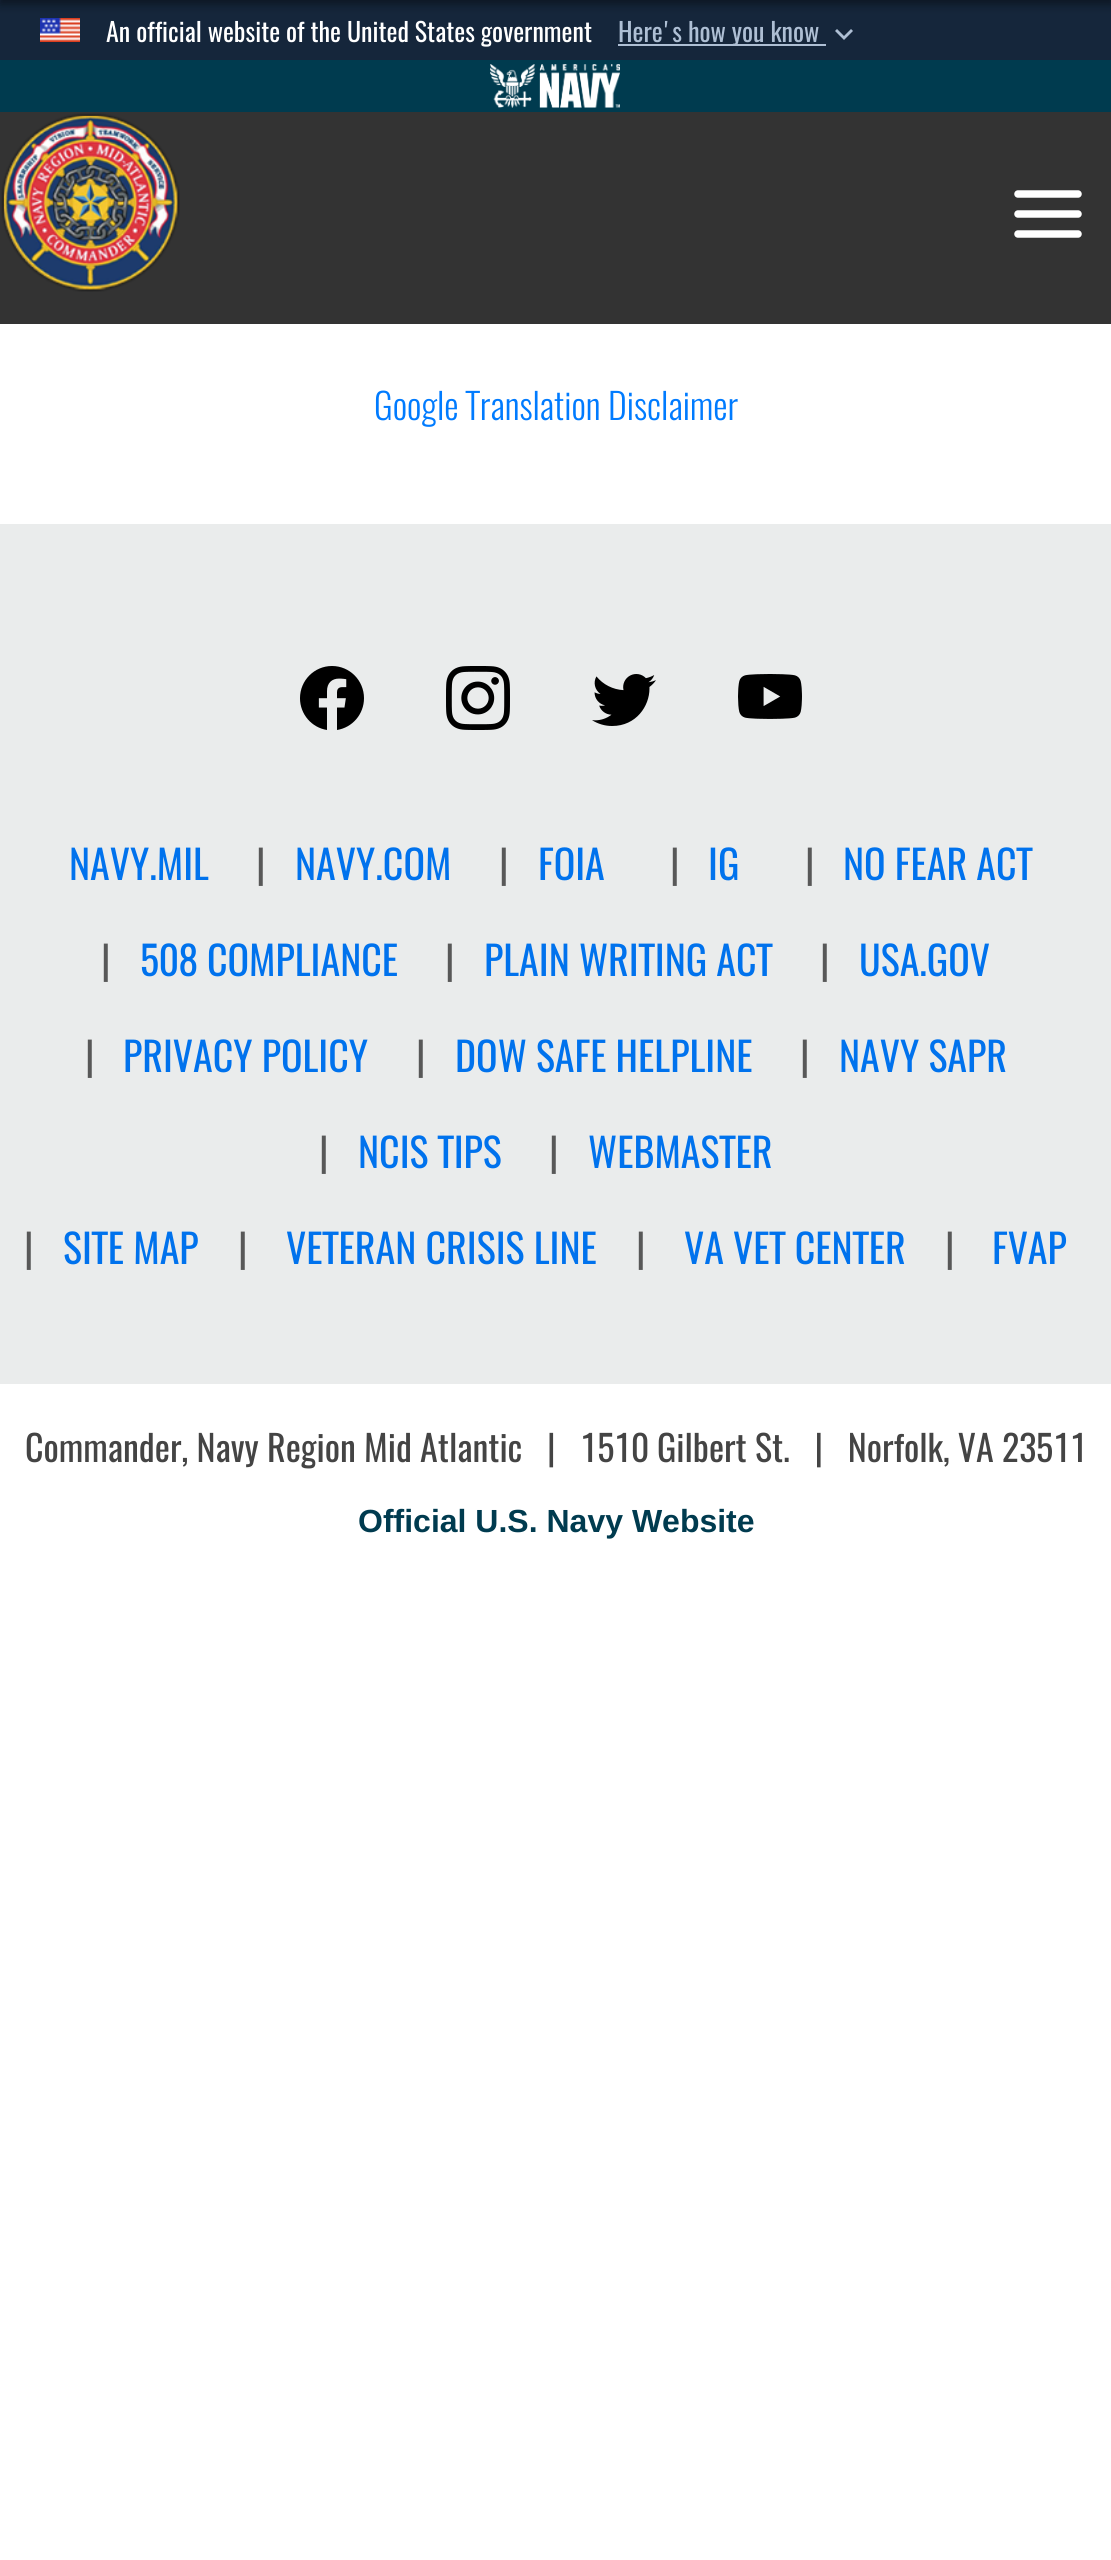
#include <cairo.h>
#include <math.h>
#include <stddef.h>

typedef struct { const char *family; double size; int italic, bold; unsigned color; } style_t;
static cairo_t *ctx;

static void ink(unsigned color) {
    cairo_set_source_rgb(ctx, (color >> 16) / 255.0, (color >> 8 & 255) / 255.0, (color & 255) / 255.0);
}

static void write(double x, double y, const char *s, const style_t *st) {
    cairo_select_font_face(ctx, st->family, st->italic ? CAIRO_FONT_SLANT_ITALIC : CAIRO_FONT_SLANT_NORMAL,
        st->bold ? CAIRO_FONT_WEIGHT_BOLD : CAIRO_FONT_WEIGHT_NORMAL);
    cairo_set_font_size(ctx, st->size);
    ink(st->color);
    cairo_move_to(ctx, x, y);
    cairo_show_text(ctx, s);
}

static void block(double x, double y, double w, double h, unsigned color) {
    ink(color);
    cairo_rectangle(ctx, x, y, w, h);
    cairo_fill(ctx);
}

static void round_path(double x, double y, double w, double h, double r) {
    cairo_new_sub_path(ctx);
    cairo_arc(ctx, x + w - r, y + h - r, r, 0, M_PI / 2);
    cairo_arc(ctx, x + r, y + h - r, r, M_PI / 2, M_PI);
    cairo_arc(ctx, x + r, y + r, r, M_PI, 1.5 * M_PI);
    cairo_arc(ctx, x + w - r, y + r, r, 1.5 * M_PI, 2 * M_PI);
    cairo_close_path(ctx);
}

static void blur_box(double x, double y, double w, double h, double r, double blur, double alpha) {
    cairo_push_group_with_content(ctx, CAIRO_CONTENT_ALPHA);
    cairo_set_operator(ctx, CAIRO_OPERATOR_SOURCE);
    for (int i = 15; i >= -15 && fmin(w, h) + blur * i / 3 > 0; i -= 2) {
        double e = blur * i / 6;
        cairo_set_source_rgba(ctx, 0, 0, 0, alpha * erfc((i - 1) / 8.5) / 2);
        round_path(x - e, y - e, w + 2 * e, h + 2 * e, fmax(0, fmin(r + e + blur * .6, fmin(w, h) / 2 + e)));
        cairo_fill(ctx);
    }
    cairo_pattern_t *soft = cairo_pop_group(ctx);
    cairo_mask(ctx, soft);
    cairo_pattern_destroy(soft);
}

static void paste(const char *path, double x, double y, double w, double h) {
    cairo_surface_t *image = cairo_image_surface_create_from_png(path);
    cairo_save(ctx);
    cairo_set_source_surface(ctx, image, x, y);
    cairo_rectangle(ctx, x, y, w, h);
    cairo_fill(ctx);
    cairo_restore(ctx);
    cairo_surface_destroy(image);
}

static const style_t s1 = {"Oswald", 26, 0, 0, 0xffffff};
static const style_t s2 = {"Oswald", 26, 0, 0, 0xaebfd4};
static const style_t s3 = {"Oswald Light", 36, 0, 0, 0x007bff};
static const style_t s4 = {"Oswald", 40, 0, 0, 0x0072ed};
static const style_t s5 = {"Oswald", 40, 0, 0, 0x585858};
static const style_t s6 = {"Oswald", 36, 0, 0, 0x444444};
static const style_t s7 = {"Liberation Sans", 32, 0, 1, 0x003b4f};

int main(void) {
    cairo_surface_t *surface = cairo_image_surface_create(CAIRO_FORMAT_RGB24, 1111, 2560);
    ctx = cairo_create(surface);
    cairo_font_options_t *options = cairo_font_options_create();
    cairo_font_options_set_hint_metrics(options, CAIRO_HINT_METRICS_OFF);
    cairo_font_options_set_hint_style(options, CAIRO_HINT_STYLE_NONE);
    cairo_set_font_options(ctx, options);
    cairo_set_miter_limit(ctx, 4);
    ink(0xffffff);
    cairo_paint(ctx);
    block(0, 0, 1111, 60, 0x15263b);
    paste("pic1.png", 40, 18, 40, 24);
    write(106, 42, "An official website of the United States government", &s1);
    block(618, 44, 208, 2, 0xaebfd4);
    write(618, 42, "Here's how you know", &s2);
    cairo_new_path(ctx);
    cairo_move_to(ctx, 851, 29);
    cairo_line_to(ctx, 844, 36);
    cairo_line_to(ctx, 837, 29);
    cairo_line_to(ctx, 835, 31);
    cairo_line_to(ctx, 844, 40);
    cairo_line_to(ctx, 853, 31);
    cairo_close_path(ctx);
    cairo_fill(ctx);
    ink(0x020406);
    blur_box(0, -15, 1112, 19, 0, 5, 0.5);
    block(0, 60, 1111, 52, 0x003b4f);
    paste("pic2.png", 490, 64, 130, 44);
    block(0, 112, 1111, 212, 0x333333);
    paste("pic3.png", 1, 113, 179, 179);
    cairo_new_path(ctx);
    cairo_move_to(ctx, 1018, 194);
    cairo_line_to(ctx, 1078, 194);
    cairo_move_to(ctx, 1018, 214);
    cairo_line_to(ctx, 1078, 214);
    cairo_move_to(ctx, 1018, 234);
    cairo_line_to(ctx, 1078, 234);
    ink(0xffffff);
    cairo_set_line_width(ctx, 7.5);
    cairo_set_line_cap(ctx, CAIRO_LINE_CAP_ROUND);
    cairo_stroke(ctx);
    write(374, 420, "Google Translation Disclaimer", &s3);
    block(0, 524, 1111, 860, 0xeaecec);
    paste("pic4.png", 300, 666, 64, 64);
    paste("pic5.png", 446, 666, 64, 64);
    paste("pic6.png", 592, 674, 64, 52);
    paste("pic7.png", 738, 674, 64, 45);
    write(69, 880, "NAVY.MIL", &s4);
    write(256, 880, "|", &s5);
    write(295, 880, "NAVY.COM", &s4);
    write(499, 880, "|", &s5);
    write(538, 880, "FOIA", &s4);
    write(670, 880, "|", &s5);
    write(708, 880, "IG", &s4);
    write(805, 880, "|", &s5);
    write(843, 880, "NO FEAR ACT", &s4);
    write(101, 976, "|", &s5);
    write(140, 976, "508 COMPLIANCE", &s4);
    write(445, 976, "|", &s5);
    write(484, 976, "PLAIN WRITING ACT", &s4);
    write(820, 976, "|", &s5);
    write(859, 976, "USA.GOV", &s4);
    write(85, 1072, "|", &s5);
    write(123, 1072, "PRIVACY POLICY", &s4);
    write(416, 1072, "|", &s5);
    write(455, 1072, "DOW SAFE HELPLINE", &s4);
    write(800, 1072, "|", &s5);
    write(839, 1072, "NAVY SAPR", &s4);
    write(319, 1168, "|", &s5);
    write(358, 1168, "NCIS TIPS", &s4);
    write(549, 1168, "|", &s5);
    write(588, 1168, "WEBMASTER", &s4);
    write(24, 1264, "|", &s5);
    write(63, 1264, "SITE MAP", &s4);
    write(238, 1264, "|", &s5);
    write(286, 1264, "VETERAN CRISIS LINE", &s4);
    write(636, 1264, "|", &s5);
    write(684, 1264, "VA VET CENTER", &s4);
    write(945, 1264, "|", &s5);
    write(992, 1264, "FVAP", &s4);
    write(25, 1462, "Commander, Navy Region Mid Atlantic   |   1510 Gilbert St.   |   Norfolk, VA 23511", &s6);
    write(358, 1532, "Official U.S. Navy Website", &s7);
    cairo_surface_write_to_png(surface, "screenshot.png");
    cairo_font_options_destroy(options);
    cairo_destroy(ctx);
    cairo_surface_destroy(surface);
    return 0;
}
